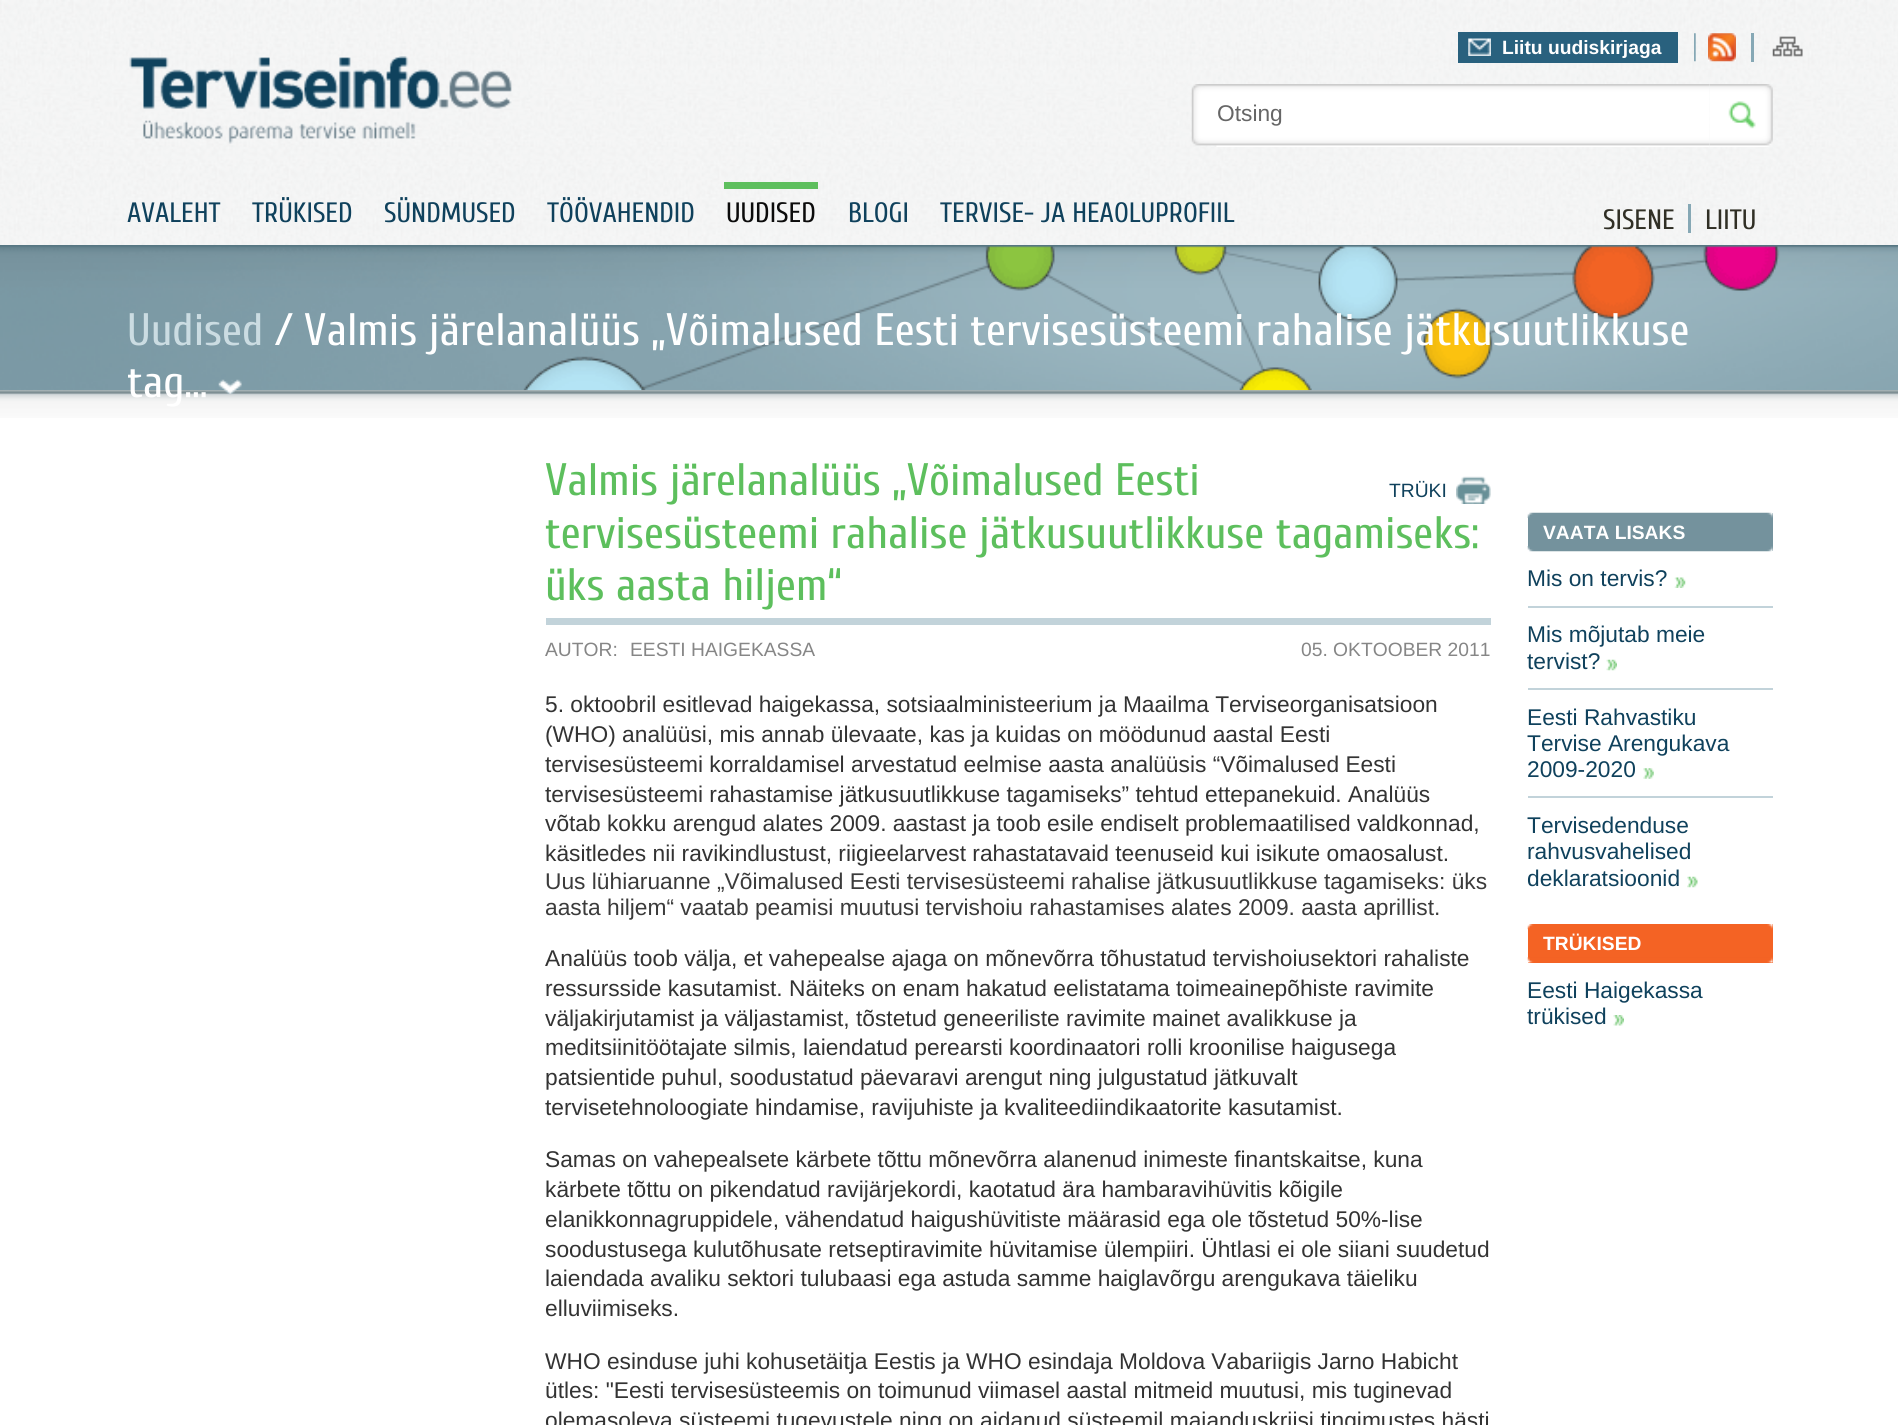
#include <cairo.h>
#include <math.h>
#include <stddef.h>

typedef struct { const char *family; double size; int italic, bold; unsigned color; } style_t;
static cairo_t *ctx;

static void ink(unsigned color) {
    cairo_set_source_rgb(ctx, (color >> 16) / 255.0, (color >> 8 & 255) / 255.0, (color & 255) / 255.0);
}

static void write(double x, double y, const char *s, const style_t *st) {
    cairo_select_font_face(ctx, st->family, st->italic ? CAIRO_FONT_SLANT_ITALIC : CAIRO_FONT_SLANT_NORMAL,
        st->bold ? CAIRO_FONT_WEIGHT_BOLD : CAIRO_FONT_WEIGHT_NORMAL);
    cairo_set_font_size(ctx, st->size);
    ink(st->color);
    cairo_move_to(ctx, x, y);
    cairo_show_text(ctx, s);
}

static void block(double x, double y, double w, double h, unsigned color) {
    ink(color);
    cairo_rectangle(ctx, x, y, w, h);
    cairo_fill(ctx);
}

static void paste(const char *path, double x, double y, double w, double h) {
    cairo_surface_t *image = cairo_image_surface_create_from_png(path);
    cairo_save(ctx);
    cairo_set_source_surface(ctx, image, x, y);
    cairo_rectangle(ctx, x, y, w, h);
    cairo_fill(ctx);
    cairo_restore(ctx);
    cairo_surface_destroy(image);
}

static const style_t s1 = {"Liberation Sans", 19.25, 0, 1, 0xffffff};
static const style_t s2 = {"Liberation Sans", 22.75, 0, 0, 0x666666};
static const style_t s3 = {"Cuprum", 28, 0, 0, 0x0f415c};
static const style_t s4 = {"Cuprum", 28, 0, 0, 0x0b0b0b};
static const style_t s5 = {"Cuprum", 28, 0, 0, 0x302f25};
static const style_t s6 = {"Cuprum", 45.5, 0, 0, 0xcbdce2};
static const style_t s7 = {"Cuprum", 45.5, 0, 0, 0xffffff};
static const style_t s8 = {"Cuprum", 45.5, 0, 0, 0x5dbf5d};
static const style_t s9 = {"Liberation Sans", 19.25, 0, 0, 0x0f415c};
static const style_t s10 = {"Liberation Sans", 19.25, 0, 0, 0x868686};
static const style_t s11 = {"Liberation Sans", 22.75, 0, 0, 0x333333};
static const style_t s12 = {"Liberation Sans", 22.75, 0, 0, 0x3b3b3b};
static const style_t s13 = {"Liberation Sans", 22.75, 0, 0, 0x0f415c};

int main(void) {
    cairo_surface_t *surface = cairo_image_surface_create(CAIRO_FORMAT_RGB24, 1898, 1425);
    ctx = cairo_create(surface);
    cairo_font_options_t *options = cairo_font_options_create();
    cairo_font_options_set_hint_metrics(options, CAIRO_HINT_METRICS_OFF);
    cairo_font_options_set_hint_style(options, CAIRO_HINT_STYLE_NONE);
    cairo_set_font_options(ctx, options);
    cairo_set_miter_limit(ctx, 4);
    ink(0xffffff);
    cairo_paint(ctx);
    paste("pic1.png", 0, 0, 1898, 245);
    paste("pic2.png", 129, 56, 383, 88);
    paste("pic3.png", 1694, 33, 2, 29);
    block(1458, 32, 220, 31, 0x29617e);
    paste("pic4.png", 1468, 38, 23, 18);
    write(1502, 54, "Liitu uudiskirjaga", &s1);
    block(1751, 33, 3, 29, 0x86a8b5);
    paste("pic5.png", 1708, 33, 28, 29);
    paste("pic6.png", 1772, 36, 31, 21);
    paste("pic7.png", 1191, 84, 519, 63);
    write(1217, 121, "Otsing", &s2);
    paste("pic8.png", 1710, 84, 63, 63);
    write(127, 222, "AVALEHT", &s3);
    write(252, 222, "TRÜKISED", &s3);
    write(384, 222, "SÜNDMUSED", &s3);
    write(547, 222, "TÖÖVAHENDID", &s3);
    block(724, 182, 94, 7, 0x5dbf5d);
    write(726, 222, "UUDISED", &s4);
    write(848, 222, "BLOGI", &s3);
    write(940, 222, "TERVISE- JA HEAOLUPROFIIL", &s3);
    block(1688, 204, 3, 29, 0x86a8b5);
    write(1603, 229, "SISENE", &s5);
    write(1705, 229, "LIITU", &s5);
    paste("pic9.png", 0, 245, 1898, 146);
    paste("pic10.png", 0, 246, 1898, 145);
    write(127, 345, "Uudised", &s6);
    write(275, 345, "/ Valmis järelanalüüs „Võimalused Eesti tervisesüsteemi rahalise jätkusuutlikkuse", &s7);
    paste("pic12.png", 0, 390, 1898, 28);
    cairo_save(ctx);
    cairo_rectangle(ctx, 128, 245, 1645, 165);
    cairo_clip(ctx);
    write(127, 397, "tag...", &s7);
    cairo_restore(ctx);
    paste("pic11.png", 218, 379, 24, 15);
    block(546, 618, 945, 7, 0xc2d3da);
    write(545, 495, "Valmis järelanalüüs „Võimalused Eesti", &s8);
    write(545, 548, "tervisesüsteemi rahalise jätkusuutlikkuse tagamiseks:", &s8);
    write(545, 600, "üks aasta hiljem“", &s8);
    paste("pic13.png", 1456, 476, 35, 28);
    write(1389, 497, "TRÜKI", &s9);
    write(545, 656, "AUTOR:", &s10);
    write(630, 656, "EESTI HAIGEKASSA", &s10);
    write(1301, 656, "05. OKTOOBER 2011", &s10);
    write(545, 712, "5. oktoobril esitlevad haigekassa, sotsiaalministeerium ja Maailma Terviseorganisatsioon", &s11);
    write(545, 742, "(WHO) analüüsi, mis annab ülevaate, kas ja kuidas on möödunud aastal Eesti", &s11);
    write(545, 772, "tervisesüsteemi korraldamisel arvestatud eelmise aasta analüüsis “Võimalused Eesti", &s11);
    write(545, 802, "tervisesüsteemi rahastamise jätkusuutlikkuse tagamiseks” tehtud ettepanekuid. Analüüs", &s11);
    write(545, 831, "võtab kokku arengud alates 2009. aastast ja toob esile endiselt problemaatilised valdkonnad,", &s11);
    write(545, 861, "käsitledes nii ravikindlustust, riigieelarvest rahastatavaid teenuseid kui isikute omaosalust.", &s11);
    write(545, 889, "Uus lühiaruanne „Võimalused Eesti tervisesüsteemi rahalise jätkusuutlikkuse tagamiseks: üks", &s12);
    write(545, 915, "aasta hiljem“ vaatab peamisi muutusi tervishoiu rahastamises alates 2009. aasta aprillist.", &s12);
    write(545, 966, "Analüüs toob välja, et vahepealse ajaga on mõnevõrra tõhustatud tervishoiusektori rahaliste", &s11);
    write(545, 996, "ressursside kasutamist. Näiteks on enam hakatud eelistatama toimeainepõhiste ravimite", &s11);
    write(545, 1026, "väljakirjutamist ja väljastamist, tõstetud geneeriliste ravimite mainet avalikkuse ja", &s11);
    write(545, 1055, "meditsiinitöötajate silmis, laiendatud perearsti koordinaatori rolli kroonilise haigusega", &s11);
    write(545, 1085, "patsientide puhul, soodustatud päevaravi arengut ning julgustatud jätkuvalt", &s11);
    write(545, 1115, "tervisetehnoloogiate hindamise, ravijuhiste ja kvaliteediindikaatorite kasutamist.", &s11);
    write(545, 1167, "Samas on vahepealsete kärbete tõttu mõnevõrra alanenud inimeste finantskaitse, kuna", &s11);
    write(545, 1197, "kärbete tõttu on pikendatud ravijärjekordi, kaotatud ära hambaravihüvitis kõigile", &s11);
    write(545, 1227, "elanikkonnagruppidele, vähendatud haigushüvitiste määrasid ega ole tõstetud 50%-lise", &s11);
    write(545, 1257, "soodustusega kulutõhusate retseptiravimite hüvitamise ülempiiri. Ühtlasi ei ole siiani suudetud", &s11);
    write(545, 1286, "laiendada avaliku sektori tulubaasi ega astuda samme haiglavõrgu arengukava täieliku", &s11);
    write(545, 1316, "elluviimiseks.", &s11);
    write(545, 1369, "WHO esinduse juhi kohusetäitja Eestis ja WHO esindaja Moldova Vabariigis Jarno Habicht", &s11);
    write(545, 1398, "ütles: \"Eesti tervisesüsteemis on toimunud viimasel aastal mitmeid muutusi, mis tuginevad", &s11);
    write(545, 1428, "olemasoleva süsteemi tugevustele ning on aidanud süsteemil majanduskriisi tingimustes hästi", &s11);
    block(1528, 513, 245, 38, 0x74929d);
    paste("pic14.png", 1527, 512, 246, 6);
    paste("pic15.png", 1527, 546, 246, 6);
    write(1543, 539, "VAATA LISAKS", &s1);
    block(1528, 606, 245, 2, 0xc2d3da);
    write(1527, 586, "Mis on tervis?", &s13);
    paste("pic16.png", 1674, 577, 12, 11);
    block(1528, 688, 245, 2, 0xc2d3da);
    write(1527, 642, "Mis mõjutab meie", &s13);
    write(1527, 669, "tervist?", &s13);
    paste("pic17.png", 1606, 659, 11, 12);
    block(1528, 796, 245, 2, 0xc2d3da);
    write(1527, 725, "Eesti Rahvastiku", &s13);
    write(1527, 751, "Tervise Arengukava", &s13);
    write(1527, 777, "2009-2020", &s13);
    paste("pic18.png", 1643, 768, 11, 11);
    write(1527, 833, "Tervisedenduse", &s13);
    write(1527, 859, "rahvusvahelised", &s13);
    write(1527, 886, "deklaratsioonid", &s13);
    paste("pic19.png", 1687, 876, 11, 12);
    block(1528, 924, 245, 39, 0xf46324);
    paste("pic20.png", 1527, 924, 246, 6);
    paste("pic21.png", 1527, 957, 246, 6);
    write(1543, 950, "TRÜKISED", &s1);
    write(1527, 998, "Eesti Haigekassa", &s13);
    write(1527, 1024, "trükised", &s13);
    paste("pic22.png", 1613, 1015, 11, 11);
    cairo_surface_write_to_png(surface, "screenshot.png");
    cairo_font_options_destroy(options);
    cairo_destroy(ctx);
    cairo_surface_destroy(surface);
    return 0;
}
